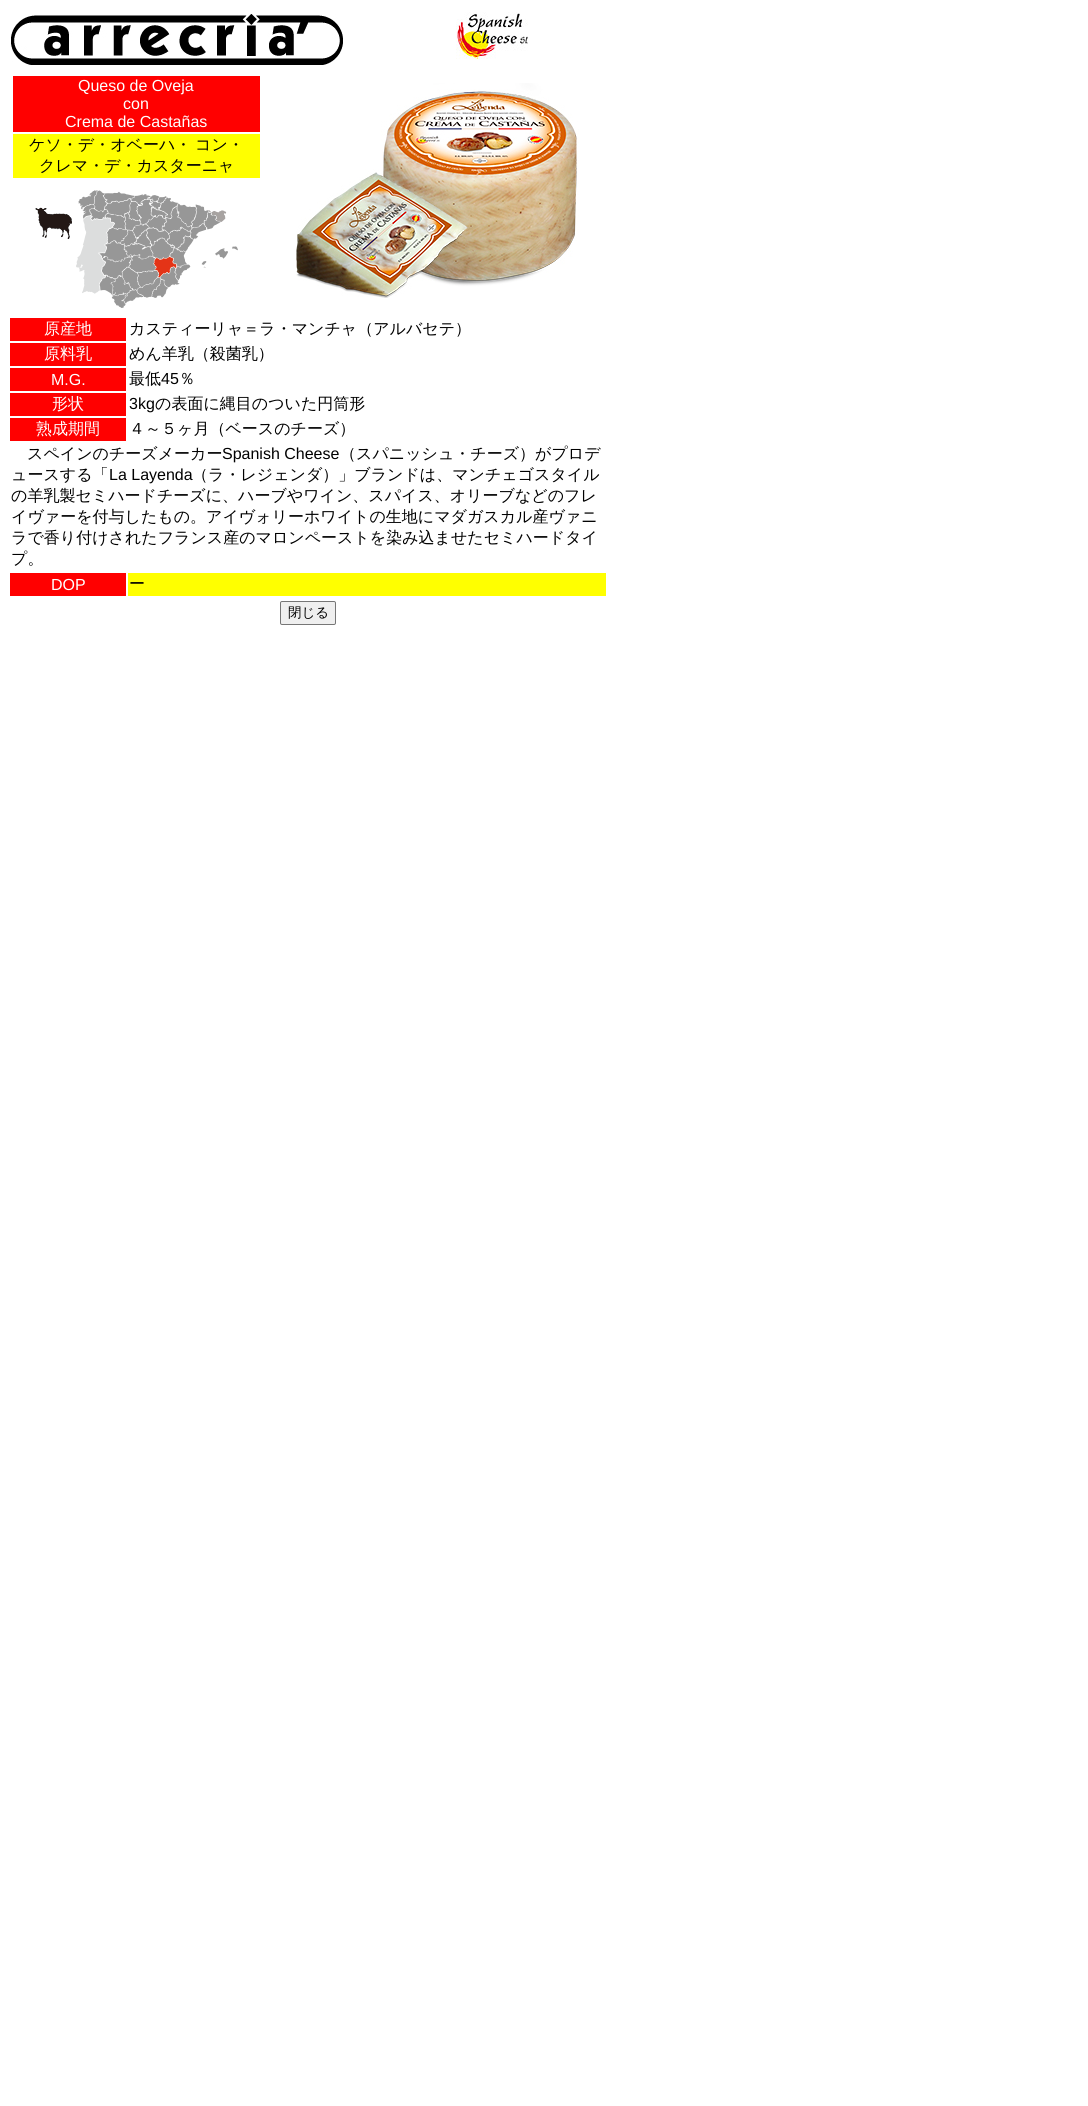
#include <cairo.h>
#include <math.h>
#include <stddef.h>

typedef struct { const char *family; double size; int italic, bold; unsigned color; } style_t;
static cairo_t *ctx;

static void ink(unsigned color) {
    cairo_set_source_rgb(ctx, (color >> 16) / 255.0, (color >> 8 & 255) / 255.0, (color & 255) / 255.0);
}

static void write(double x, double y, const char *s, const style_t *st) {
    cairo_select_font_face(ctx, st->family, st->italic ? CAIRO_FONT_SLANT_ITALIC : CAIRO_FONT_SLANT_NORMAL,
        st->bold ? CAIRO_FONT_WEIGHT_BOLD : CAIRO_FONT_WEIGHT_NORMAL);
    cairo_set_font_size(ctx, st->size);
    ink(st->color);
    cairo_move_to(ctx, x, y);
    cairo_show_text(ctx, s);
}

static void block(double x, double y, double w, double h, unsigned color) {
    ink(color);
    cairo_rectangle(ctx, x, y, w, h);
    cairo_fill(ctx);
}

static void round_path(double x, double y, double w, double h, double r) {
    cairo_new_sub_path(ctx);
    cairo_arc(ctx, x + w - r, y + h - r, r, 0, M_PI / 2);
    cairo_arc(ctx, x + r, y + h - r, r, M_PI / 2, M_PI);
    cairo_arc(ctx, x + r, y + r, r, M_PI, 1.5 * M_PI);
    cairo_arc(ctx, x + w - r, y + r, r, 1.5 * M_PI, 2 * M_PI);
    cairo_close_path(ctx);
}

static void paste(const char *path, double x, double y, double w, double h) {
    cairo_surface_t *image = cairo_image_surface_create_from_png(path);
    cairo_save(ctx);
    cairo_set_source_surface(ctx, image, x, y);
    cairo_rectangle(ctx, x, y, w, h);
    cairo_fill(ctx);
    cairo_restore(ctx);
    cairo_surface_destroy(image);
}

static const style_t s1 = {"Liberation Sans", 16, 0, 0, 0xffffff};
static const style_t s2 = {"WenQuanYi Zen Hei Medium", 16, 0, 0, 0x000000};
static const style_t s3 = {"WenQuanYi Zen Hei Medium", 16, 0, 0, 0xffffff};
static const style_t s4 = {"Liberation Sans", 16, 0, 0, 0x000000};
static const style_t s5 = {"WenQuanYi Zen Hei Medium", 13.5, 0, 0, 0x000000};

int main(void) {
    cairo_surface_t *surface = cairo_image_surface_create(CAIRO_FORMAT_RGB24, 1088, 2106);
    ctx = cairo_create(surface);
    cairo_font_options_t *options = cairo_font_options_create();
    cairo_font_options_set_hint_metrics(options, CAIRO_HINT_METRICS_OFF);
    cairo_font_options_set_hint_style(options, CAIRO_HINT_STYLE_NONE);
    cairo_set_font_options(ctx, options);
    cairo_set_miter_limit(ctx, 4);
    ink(0xffffff);
    cairo_paint(ctx);
    paste("pic1.png", 11, 14, 332, 51);
    paste("pic2.png", 456, 12, 72, 47);
    block(13, 76, 247, 56, 0xff0000);
    write(78, 91, "Queso de Oveja", &s1);
    write(123, 109, "con", &s1);
    write(65, 127, "Crema de Castañas", &s1);
    block(13, 134, 247, 44, 0xffff00);
    write(29, 150, "ケソ・デ・オベーハ・", &s2);
    write(195, 150, "コン・", &s2);
    write(39, 171, "クレマ・デ・カスターニャ", &s2);
    paste("pic3.png", 296, 83, 283, 215);
    paste("pic4.png", 35, 207, 37, 32);
    paste("pic5.png", 76, 190, 162, 118);
    block(10, 318, 116, 23, 0xff0000);
    write(44, 334, "原産地", &s3);
    write(129, 334, "カスティーリャ＝ラ・マンチャ（アルバセテ）", &s2);
    block(10, 343, 116, 23, 0xff0000);
    write(44, 359, "原料乳", &s3);
    write(129, 359, "めん羊乳（殺菌乳）", &s2);
    block(10, 368, 116, 23, 0xff0000);
    write(51, 385, "M.G.", &s1);
    write(129, 384, "最低", &s2);
    write(161, 384, "45", &s4);
    write(179, 384, "％", &s2);
    block(10, 393, 116, 23, 0xff0000);
    write(52, 409, "形状", &s3);
    write(129, 409, "3kg", &s4);
    write(155, 409, "の表面に縄目のついた円筒形", &s2);
    block(10, 418, 116, 23, 0xff0000);
    write(36, 434, "熟成期間", &s3);
    write(129, 434, "４～５ヶ月（ベースのチーズ）", &s2);
    write(27, 459, "スペインのチーズメーカー", &s2);
    write(222, 459, "Spanish Cheese", &s4);
    write(340, 459, "（スパニッシュ・チーズ）がプロデ", &s2);
    write(11, 480, "ュースする「", &s2);
    write(109, 480, "La Layenda", &s4);
    write(192, 480, "（ラ・レジェンダ）」ブランドは、マンチェゴスタイル", &s2);
    write(11, 501, "の羊乳製セミハードチーズに、ハーブやワイン、スパイス、オリーブなどのフレ", &s2);
    write(11, 522, "イヴァーを付与したもの。アイヴォリーホワイトの生地にマダガスカル産ヴァニ", &s2);
    write(11, 543, "ラで香り付けされたフランス産のマロンペーストを染み込ませたセミハードタイ", &s2);
    write(11, 564, "プ。", &s2);
    block(10, 573, 116, 23, 0xff0000);
    write(51, 590, "DOP", &s1);
    block(128, 573, 478, 23, 0xffff00);
    write(129, 589, "ー", &s2);
    ink(0xefefef);
    round_path(280.5, 601.5, 55, 23, 1.5);
    cairo_fill_preserve(ctx);
    ink(0x767676);
    cairo_set_line_width(ctx, 1);
    cairo_stroke(ctx);
    write(288, 617, "閉じる", &s5);
    cairo_surface_write_to_png(surface, "screenshot.png");
    cairo_font_options_destroy(options);
    cairo_destroy(ctx);
    cairo_surface_destroy(surface);
    return 0;
}
